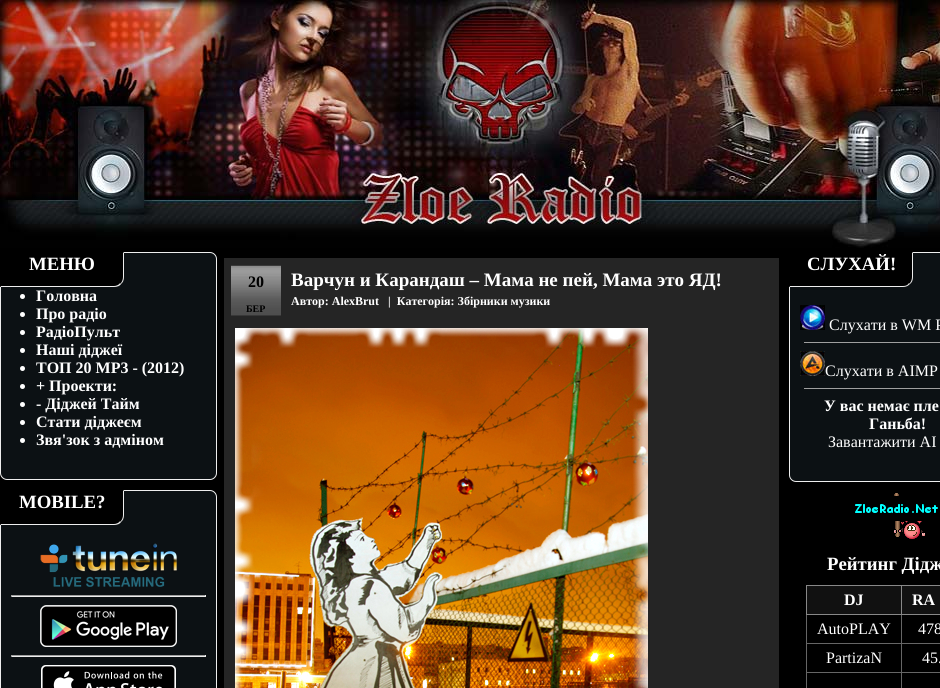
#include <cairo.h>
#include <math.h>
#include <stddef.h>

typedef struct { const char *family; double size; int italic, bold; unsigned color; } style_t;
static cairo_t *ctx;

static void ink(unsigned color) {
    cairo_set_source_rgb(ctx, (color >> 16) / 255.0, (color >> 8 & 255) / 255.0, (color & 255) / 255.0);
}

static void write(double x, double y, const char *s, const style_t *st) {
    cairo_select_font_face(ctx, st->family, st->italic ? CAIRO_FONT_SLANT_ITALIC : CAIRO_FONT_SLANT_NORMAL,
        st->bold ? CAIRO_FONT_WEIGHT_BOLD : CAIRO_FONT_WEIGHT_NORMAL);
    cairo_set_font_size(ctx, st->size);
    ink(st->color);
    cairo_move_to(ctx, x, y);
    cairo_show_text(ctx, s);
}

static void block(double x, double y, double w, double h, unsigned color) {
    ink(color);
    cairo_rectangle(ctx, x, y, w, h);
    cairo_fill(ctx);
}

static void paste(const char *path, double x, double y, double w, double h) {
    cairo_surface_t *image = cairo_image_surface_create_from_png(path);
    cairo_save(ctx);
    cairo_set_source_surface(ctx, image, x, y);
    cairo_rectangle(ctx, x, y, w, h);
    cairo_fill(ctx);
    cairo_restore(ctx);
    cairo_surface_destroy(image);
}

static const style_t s1 = {"Liberation Serif", 18.75, 0, 1, 0xffffff};
static const style_t s2 = {"Liberation Serif", 16, 0, 1, 0xffffff};
static const style_t s3 = {"Liberation Serif", 16, 0, 1, 0x000000};
static const style_t s4 = {"Liberation Serif", 10, 0, 1, 0x000000};
static const style_t s5 = {"Liberation Serif", 19, 0, 1, 0xffffff};
static const style_t s6 = {"Liberation Serif", 12, 0, 1, 0xffffff};
static const style_t s7 = {"Liberation Serif", 16, 0, 0, 0xffffff};

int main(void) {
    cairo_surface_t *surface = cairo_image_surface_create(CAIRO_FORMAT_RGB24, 940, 688);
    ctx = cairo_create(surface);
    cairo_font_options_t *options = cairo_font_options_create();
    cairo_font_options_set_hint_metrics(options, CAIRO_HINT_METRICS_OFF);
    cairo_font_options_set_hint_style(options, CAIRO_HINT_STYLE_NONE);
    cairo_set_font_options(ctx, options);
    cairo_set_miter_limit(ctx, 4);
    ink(0x000000);
    cairo_paint(ctx);
    paste("pic1.png", 0, 0, 940, 248);
    ink(0x0c1114);
    cairo_new_path(ctx);
    cairo_move_to(ctx, 0.5, 252.5);
    cairo_line_to(ctx, 210, 252.5);
    cairo_curve_to(ctx, 213.5, 252.5, 216.5, 255.5, 216.5, 259);
    cairo_line_to(ctx, 216.5, 473);
    cairo_curve_to(ctx, 216.5, 476.5, 213.5, 479.5, 210, 479.5);
    cairo_line_to(ctx, 7, 479.5);
    cairo_curve_to(ctx, 3.5, 479.5, 0.5, 476.5, 0.5, 473);
    cairo_close_path(ctx);
    cairo_fill_preserve(ctx);
    ink(0xeeeeee);
    cairo_set_line_width(ctx, 1);
    cairo_stroke(ctx);
    ink(0x000000);
    cairo_new_path(ctx);
    cairo_move_to(ctx, 0, 252);
    cairo_line_to(ctx, 124, 252);
    cairo_line_to(ctx, 124, 277);
    cairo_curve_to(ctx, 124, 282.5, 119.5, 287, 114, 287);
    cairo_line_to(ctx, 0, 287);
    cairo_close_path(ctx);
    cairo_fill(ctx);
    ink(0xeeeeee);
    cairo_new_path(ctx);
    cairo_move_to(ctx, 124, 252);
    cairo_line_to(ctx, 123, 253);
    cairo_line_to(ctx, 123, 277);
    cairo_curve_to(ctx, 123, 279.5, 122, 282, 120.5, 283.5);
    cairo_line_to(ctx, 121, 284);
    cairo_curve_to(ctx, 123, 282.5, 124, 280, 124, 277);
    cairo_close_path(ctx);
    cairo_fill(ctx);
    cairo_new_path(ctx);
    cairo_move_to(ctx, 114, 287);
    cairo_curve_to(ctx, 117, 287, 120, 286, 121, 284);
    cairo_line_to(ctx, 120, 283);
    cairo_curve_to(ctx, 119, 285, 116, 286, 114, 286);
    cairo_line_to(ctx, 1, 286);
    cairo_line_to(ctx, 0, 287);
    cairo_close_path(ctx);
    cairo_fill(ctx);
    ink(0x000000);
    cairo_new_path(ctx);
    cairo_move_to(ctx, 0, 252);
    cairo_line_to(ctx, 0, 287);
    cairo_line_to(ctx, 1, 286);
    cairo_line_to(ctx, 1, 253);
    cairo_close_path(ctx);
    cairo_fill(ctx);
    write(29, 270, "МЕНЮ", &s1);
    cairo_new_path(ctx);
    cairo_arc(ctx, 22.5, 296.5, 2.5, 0, 2 * M_PI);
    cairo_fill(ctx);
    write(36, 301, "Головна", &s2);
    cairo_new_path(ctx);
    cairo_arc(ctx, 22.5, 314.5, 2.5, 0, 2 * M_PI);
    cairo_fill(ctx);
    write(36, 319, "Про радіо", &s2);
    cairo_new_path(ctx);
    cairo_arc(ctx, 22.5, 332.5, 2.5, 0, 2 * M_PI);
    cairo_fill(ctx);
    write(36, 337, "РадiоПульт", &s2);
    cairo_new_path(ctx);
    cairo_arc(ctx, 22.5, 350.5, 2.5, 0, 2 * M_PI);
    cairo_fill(ctx);
    write(36, 355, "Наші діджеї", &s2);
    cairo_new_path(ctx);
    cairo_arc(ctx, 22.5, 368.5, 2.5, 0, 2 * M_PI);
    cairo_fill(ctx);
    write(36, 373, "ТОП 20 MP3 - (2012)", &s2);
    cairo_new_path(ctx);
    cairo_arc(ctx, 22.5, 386.5, 2.5, 0, 2 * M_PI);
    cairo_fill(ctx);
    write(36, 391, "+ Проекти:", &s2);
    cairo_new_path(ctx);
    cairo_arc(ctx, 22.5, 404.5, 2.5, 0, 2 * M_PI);
    cairo_fill(ctx);
    write(36, 409, "- Діджей Тайм", &s2);
    cairo_new_path(ctx);
    cairo_arc(ctx, 22.5, 422.5, 2.5, 0, 2 * M_PI);
    cairo_fill(ctx);
    write(36, 427, "Стати діджеєм", &s2);
    cairo_new_path(ctx);
    cairo_arc(ctx, 22.5, 440.5, 2.5, 0, 2 * M_PI);
    cairo_fill(ctx);
    write(36, 445, "Звя'зок з адміном", &s2);
    ink(0x0c1114);
    cairo_new_path(ctx);
    cairo_move_to(ctx, 0.5, 490.5);
    cairo_line_to(ctx, 210, 490.5);
    cairo_curve_to(ctx, 213.5, 490.5, 216.5, 493.5, 216.5, 497);
    cairo_line_to(ctx, 216.5, 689);
    cairo_curve_to(ctx, 216.5, 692.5, 213.5, 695.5, 210, 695.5);
    cairo_line_to(ctx, 7, 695.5);
    cairo_curve_to(ctx, 3.5, 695.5, 0.5, 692.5, 0.5, 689);
    cairo_close_path(ctx);
    cairo_fill_preserve(ctx);
    ink(0xeeeeee);
    cairo_stroke(ctx);
    ink(0x000000);
    cairo_new_path(ctx);
    cairo_move_to(ctx, 0, 490);
    cairo_line_to(ctx, 124, 490);
    cairo_line_to(ctx, 124, 515);
    cairo_curve_to(ctx, 124, 520.5, 119.5, 525, 114, 525);
    cairo_line_to(ctx, 0, 525);
    cairo_close_path(ctx);
    cairo_fill(ctx);
    ink(0xeeeeee);
    cairo_new_path(ctx);
    cairo_move_to(ctx, 124, 490);
    cairo_line_to(ctx, 123, 491);
    cairo_line_to(ctx, 123, 515);
    cairo_curve_to(ctx, 123, 517.5, 122, 520, 120.5, 521.5);
    cairo_line_to(ctx, 121, 522);
    cairo_curve_to(ctx, 123, 520.5, 124, 518, 124, 515);
    cairo_close_path(ctx);
    cairo_fill(ctx);
    cairo_new_path(ctx);
    cairo_move_to(ctx, 114, 525);
    cairo_curve_to(ctx, 117, 525, 120, 524, 121, 522);
    cairo_line_to(ctx, 120, 521);
    cairo_curve_to(ctx, 119, 523, 116, 524, 114, 524);
    cairo_line_to(ctx, 1, 524);
    cairo_line_to(ctx, 0, 525);
    cairo_close_path(ctx);
    cairo_fill(ctx);
    ink(0x000000);
    cairo_new_path(ctx);
    cairo_move_to(ctx, 0, 490);
    cairo_line_to(ctx, 0, 525);
    cairo_line_to(ctx, 1, 524);
    cairo_line_to(ctx, 1, 491);
    cairo_close_path(ctx);
    cairo_fill(ctx);
    write(19, 508, "MOBILE?", &s1);
    paste("pic2.png", 40, 543, 137, 44);
    block(11, 595, 195, 1, 0x9f9f9f);
    block(205, 595, 1, 2, 0xeeeeee);
    block(11, 596, 195, 1, 0xeeeeee);
    block(11, 595, 1, 2, 0x9f9f9f);
    paste("pic3.png", 40, 605, 137, 42);
    block(11, 655, 195, 1, 0x9f9f9f);
    block(205, 655, 1, 2, 0xeeeeee);
    block(11, 656, 195, 1, 0xeeeeee);
    block(11, 655, 1, 2, 0x9f9f9f);
    paste("pic4.png", 41, 665, 135, 23);
    block(224, 258, 555, 430, 0x252525);
    paste("pic5.png", 231, 265, 50, 51);
    write(248, 287, "20", &s3);
    write(246, 312, "БЕР", &s4);
    write(291, 286, "Варчун и Карандаш – Мама не пей, Мама это ЯД!", &s5);
    write(291, 305, "Автор: AlexBrut   |  Категорія: Збірники музики", &s6);
    paste("pic6.png", 235, 328, 413, 360);
    ink(0x0c1114);
    cairo_new_path(ctx);
    cairo_move_to(ctx, 789.5, 252.5);
    cairo_line_to(ctx, 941, 252.5);
    cairo_curve_to(ctx, 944.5, 252.5, 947.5, 255.5, 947.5, 259);
    cairo_line_to(ctx, 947.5, 475);
    cairo_curve_to(ctx, 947.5, 478.5, 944.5, 481.5, 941, 481.5);
    cairo_line_to(ctx, 796, 481.5);
    cairo_curve_to(ctx, 792.5, 481.5, 789.5, 478.5, 789.5, 475);
    cairo_close_path(ctx);
    cairo_fill_preserve(ctx);
    ink(0xeeeeee);
    cairo_stroke(ctx);
    ink(0x000000);
    cairo_new_path(ctx);
    cairo_move_to(ctx, 789, 252);
    cairo_line_to(ctx, 913, 252);
    cairo_line_to(ctx, 913, 277);
    cairo_curve_to(ctx, 913, 282.5, 908.5, 287, 903, 287);
    cairo_line_to(ctx, 789, 287);
    cairo_close_path(ctx);
    cairo_fill(ctx);
    ink(0xeeeeee);
    cairo_new_path(ctx);
    cairo_move_to(ctx, 913, 252);
    cairo_line_to(ctx, 912, 253);
    cairo_line_to(ctx, 912, 277);
    cairo_curve_to(ctx, 912, 279.5, 911, 282, 909.5, 283.5);
    cairo_line_to(ctx, 910, 284);
    cairo_curve_to(ctx, 912, 282.5, 913, 280, 913, 277);
    cairo_close_path(ctx);
    cairo_fill(ctx);
    cairo_new_path(ctx);
    cairo_move_to(ctx, 903, 287);
    cairo_curve_to(ctx, 906, 287, 908, 286, 910, 284);
    cairo_line_to(ctx, 909, 283);
    cairo_curve_to(ctx, 908, 285, 906, 286, 903, 286);
    cairo_line_to(ctx, 790, 286);
    cairo_line_to(ctx, 789, 287);
    cairo_close_path(ctx);
    cairo_fill(ctx);
    ink(0x000000);
    cairo_new_path(ctx);
    cairo_move_to(ctx, 789, 252);
    cairo_line_to(ctx, 789, 287);
    cairo_line_to(ctx, 790, 286);
    cairo_line_to(ctx, 790, 253);
    cairo_close_path(ctx);
    cairo_fill(ctx);
    write(807, 270, "СЛУХАЙ!", &s1);
    paste("pic7.png", 800, 305, 25, 25);
    write(829, 330, "Cлухати в WM P", &s7);
    block(804, 342, 136, 1, 0x9f9f9f);
    paste("pic8.png", 800, 351, 25, 25);
    write(825, 376, "Слухати в AIMP", &s7);
    block(804, 388, 136, 1, 0x9f9f9f);
    write(824, 411, "У вас немає пле", &s2);
    write(869, 429, "Ганьба!", &s2);
    write(828, 447, "Завантажити AI", &s7);
    paste("pic9.png", 855, 493, 83, 46);
    write(827, 570, "Рейтинг Дідж", &s1);
    block(807, 586, 133, 28, 0x111111);
    block(901, 585, 39, 1, 0x888888);
    block(901, 643, 39, 1, 0x666666);
    block(901, 672, 39, 1, 0x666666);
    block(901, 672, 1, 16, 0x666666);
    block(806, 672, 96, 1, 0x666666);
    block(901, 643, 1, 30, 0x666666);
    block(806, 643, 96, 1, 0x666666);
    block(901, 614, 1, 30, 0x666666);
    block(901, 614, 39, 1, 0x888888);
    block(901, 585, 1, 30, 0x888888);
    block(806, 585, 96, 1, 0x888888);
    block(806, 672, 1, 16, 0x666666);
    block(806, 614, 1, 59, 0x666666);
    block(806, 614, 96, 1, 0x888888);
    block(806, 585, 1, 30, 0x888888);
    write(844, 605, "DJ", &s2);
    write(912, 605, "RA", &s2);
    write(817, 634, "AutoPLAY", &s7);
    write(918, 634, "478", &s7);
    write(826, 663, "PartizaN", &s7);
    write(922, 663, "45.", &s7);
    cairo_surface_write_to_png(surface, "screenshot.png");
    cairo_font_options_destroy(options);
    cairo_destroy(ctx);
    cairo_surface_destroy(surface);
    return 0;
}
